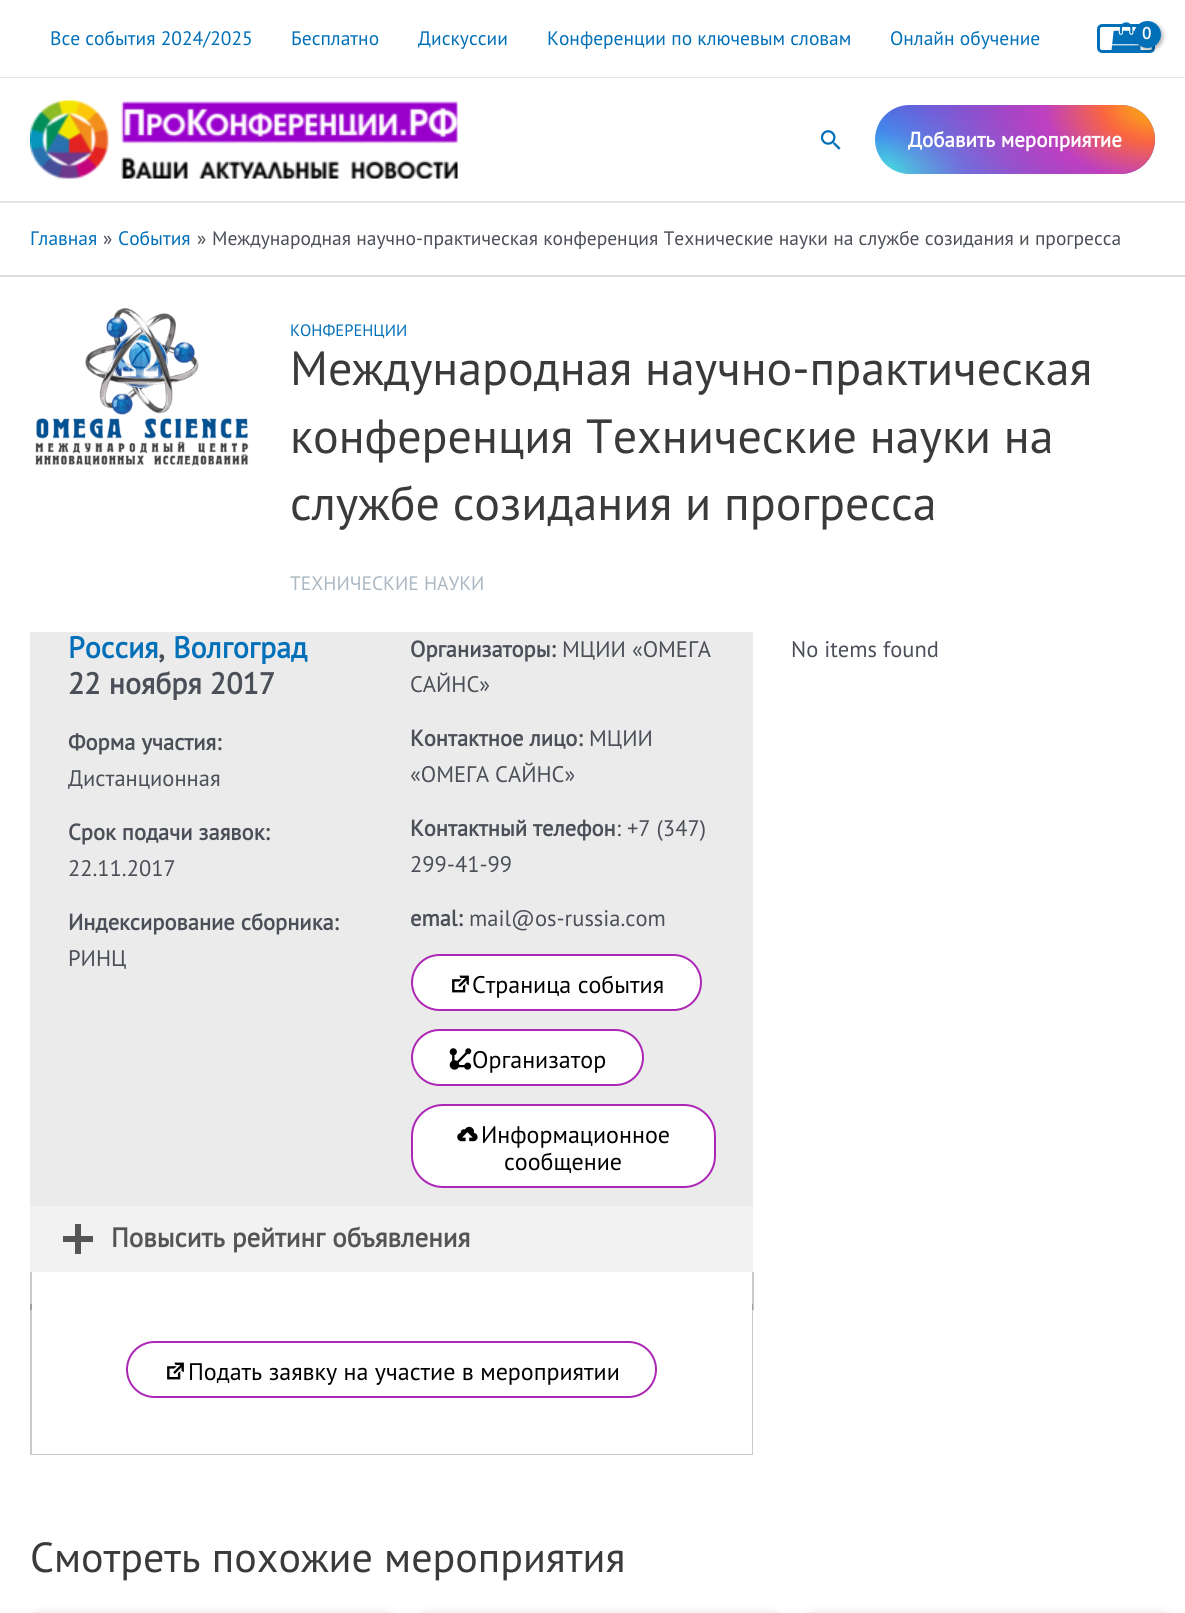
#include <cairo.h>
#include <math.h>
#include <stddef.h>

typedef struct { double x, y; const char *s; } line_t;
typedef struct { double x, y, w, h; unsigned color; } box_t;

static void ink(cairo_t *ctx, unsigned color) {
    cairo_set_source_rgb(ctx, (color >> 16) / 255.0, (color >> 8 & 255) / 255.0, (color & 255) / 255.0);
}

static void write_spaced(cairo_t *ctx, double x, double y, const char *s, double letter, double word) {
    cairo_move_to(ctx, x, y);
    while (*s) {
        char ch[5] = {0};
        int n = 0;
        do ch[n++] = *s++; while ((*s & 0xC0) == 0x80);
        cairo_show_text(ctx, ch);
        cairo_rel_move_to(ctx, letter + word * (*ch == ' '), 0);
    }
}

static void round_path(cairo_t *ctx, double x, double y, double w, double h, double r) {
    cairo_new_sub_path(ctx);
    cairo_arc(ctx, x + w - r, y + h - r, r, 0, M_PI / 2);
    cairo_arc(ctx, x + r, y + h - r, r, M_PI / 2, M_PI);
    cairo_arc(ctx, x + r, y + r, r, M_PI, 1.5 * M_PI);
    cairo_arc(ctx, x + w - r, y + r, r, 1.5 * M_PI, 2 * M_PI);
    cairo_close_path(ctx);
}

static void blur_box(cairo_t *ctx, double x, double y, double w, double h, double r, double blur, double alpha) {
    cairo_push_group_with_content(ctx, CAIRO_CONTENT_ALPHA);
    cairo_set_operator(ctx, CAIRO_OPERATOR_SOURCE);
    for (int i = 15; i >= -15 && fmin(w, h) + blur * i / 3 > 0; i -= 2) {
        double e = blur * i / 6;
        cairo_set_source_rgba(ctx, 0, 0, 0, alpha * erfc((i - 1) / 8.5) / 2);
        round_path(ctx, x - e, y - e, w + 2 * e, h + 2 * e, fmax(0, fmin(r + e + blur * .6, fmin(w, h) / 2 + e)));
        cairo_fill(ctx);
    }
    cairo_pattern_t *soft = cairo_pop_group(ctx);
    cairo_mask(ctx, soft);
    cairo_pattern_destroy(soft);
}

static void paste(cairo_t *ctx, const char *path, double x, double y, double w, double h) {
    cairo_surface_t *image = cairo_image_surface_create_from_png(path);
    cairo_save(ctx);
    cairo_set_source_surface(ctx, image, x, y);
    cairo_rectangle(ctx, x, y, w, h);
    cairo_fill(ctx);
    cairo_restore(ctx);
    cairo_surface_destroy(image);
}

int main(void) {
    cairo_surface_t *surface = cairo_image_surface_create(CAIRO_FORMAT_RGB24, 1185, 1613);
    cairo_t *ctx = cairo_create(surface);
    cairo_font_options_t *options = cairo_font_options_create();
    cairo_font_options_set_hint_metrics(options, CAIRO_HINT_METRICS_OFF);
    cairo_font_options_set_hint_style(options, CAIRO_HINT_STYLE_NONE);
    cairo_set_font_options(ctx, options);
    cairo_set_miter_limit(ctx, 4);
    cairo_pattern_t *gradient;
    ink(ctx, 0xFFFFFF);
    cairo_paint(ctx);
    ink(ctx, 0xE5E5E5);
    cairo_rectangle(ctx, 0, 77, 1185, 1);
    cairo_fill(ctx);
    cairo_select_font_face(ctx, "PT Sans", CAIRO_FONT_SLANT_NORMAL, CAIRO_FONT_WEIGHT_NORMAL);
    cairo_set_font_size(ctx, 19.5);
    ink(ctx, 0x0170B9);
    {
        static const line_t items[] = {
            {50, 45, "Все события 2024/2025"},
            {291, 45, "Бесплатно"},
            {418, 45, "Дискуссии"},
            {547, 45, "Конференции по ключевым словам"},
            {890, 45, "Онлайн обучение"},
        };
        for (size_t i = 0; i < sizeof items / sizeof *items; i++) {
            cairo_move_to(ctx, items[i].x, items[i].y);
            cairo_show_text(ctx, items[i].s);
        }
    }
    round_path(ctx, 1098.5, 25.5, 55, 26, 3.5);
    cairo_set_line_width(ctx, 3);
    cairo_stroke(ctx);
    paste(ctx, "media/1.png", 1111, 22, 30, 28);
    ink(ctx, 0x000000);
    blur_box(ctx, 1136, 23, 27, 27, 13.5, 2, 0.3);
    ink(ctx, 0x0170B9);
    cairo_arc(ctx, 1147.5, 34.5, 13.5, 0, 2 * M_PI);
    cairo_fill(ctx);
    cairo_select_font_face(ctx, "PT Sans", CAIRO_FONT_SLANT_NORMAL, CAIRO_FONT_WEIGHT_BOLD);
    cairo_set_font_size(ctx, 16.5);
    ink(ctx, 0xFFFFFF);
    write_spaced(ctx, 1142, 39, "0", -1, 0);
    ink(ctx, 0xE5E5E5);
    cairo_rectangle(ctx, 0, 201, 1185, 2);
    cairo_fill(ctx);
    paste(ctx, "media/2.png", 30, 100, 428, 79);
    paste(ctx, "media/3.png", 820, 130, 21, 20);
    gradient = cairo_pattern_create_radial(0, 0, 0, 0, 0, 1);
    cairo_pattern_set_matrix(gradient, &(cairo_matrix_t){1.0 / 301, 0, 0, 1.0 / 135, -1.0 * 875 / 301, -1.0 * 174 / 135});
    cairo_pattern_add_color_stop_rgba(gradient, 0.08, 0.282, 0.8, 0.878, 1);
    cairo_pattern_add_color_stop_rgba(gradient, 0.31, 0.259, 0.545, 0.922, 1);
    cairo_pattern_add_color_stop_rgba(gradient, 0.65, 0.314, 0.353, 0.867, 1);
    cairo_set_source(ctx, gradient);
    cairo_pattern_destroy(gradient);
    round_path(ctx, 875, 105, 280, 69, 34.5);
    cairo_fill(ctx);
    gradient = cairo_pattern_create_radial(0, 0, 0, 0, 0, 1);
    cairo_pattern_set_matrix(gradient, &(cairo_matrix_t){1.0 / 277, 0, 0, 1.0 / 193, -1.0 * 1155 / 277, -1.0 * 105 / 193});
    cairo_pattern_add_color_stop_rgba(gradient, 0.03, 0.988, 0.671, 0.078, 1);
    cairo_pattern_add_color_stop_rgba(gradient, 0.19, 0.98, 0.4, 0.255, 1);
    cairo_pattern_add_color_stop_rgba(gradient, 0.4, 0.745, 0.251, 0.753, 1);
    cairo_pattern_add_color_stop_rgba(gradient, 1, 0.745, 0.251, 0.753, 0);
    cairo_set_source(ctx, gradient);
    cairo_pattern_destroy(gradient);
    round_path(ctx, 875, 105, 280, 69, 34.5);
    cairo_fill(ctx);
    cairo_set_font_size(ctx, 21);
    ink(ctx, 0xFFFFFF);
    cairo_move_to(ctx, 908, 147);
    cairo_show_text(ctx, "Добавить мероприятие");
    ink(ctx, 0xDDDDDD);
    cairo_rectangle(ctx, 0, 275, 1185, 2);
    cairo_fill(ctx);
    cairo_select_font_face(ctx, "PT Sans", CAIRO_FONT_SLANT_NORMAL, CAIRO_FONT_WEIGHT_NORMAL);
    cairo_set_font_size(ctx, 19.5);
    ink(ctx, 0x0170B9);
    cairo_move_to(ctx, 30, 245);
    cairo_show_text(ctx, "Главная");
    ink(ctx, 0x4B4F58);
    cairo_move_to(ctx, 103, 245);
    cairo_show_text(ctx, "»");
    ink(ctx, 0x0170B9);
    cairo_move_to(ctx, 118, 245);
    cairo_show_text(ctx, "События");
    ink(ctx, 0x4B4F58);
    cairo_move_to(ctx, 197, 245);
    cairo_show_text(ctx, "»");
    cairo_move_to(ctx, 212, 245);
    cairo_show_text(ctx, "Международная научно-практическая конференция Технические науки на службе созидания и прогресса");
    paste(ctx, "media/4.png", 35, 308, 214, 158);
    cairo_set_font_size(ctx, 16.5);
    ink(ctx, 0x0170B9);
    cairo_move_to(ctx, 290, 336);
    cairo_show_text(ctx, "КОНФЕРЕНЦИИ");
    cairo_set_font_size(ctx, 48);
    ink(ctx, 0x3A3A3A);
    {
        static const line_t items[] = {
            {290, 385, "Международная научно-практическая"},
            {290, 453, "конференция Технические науки на"},
            {290, 520, "службе созидания и прогресса"},
        };
        for (size_t i = 0; i < sizeof items / sizeof *items; i++) {
            cairo_move_to(ctx, items[i].x, items[i].y);
            cairo_show_text(ctx, items[i].s);
        }
    }
    cairo_set_font_size(ctx, 19.5);
    ink(ctx, 0xABB8C3);
    cairo_move_to(ctx, 290, 590);
    cairo_show_text(ctx, "ТЕХНИЧЕСКИЕ НАУКИ");
    ink(ctx, 0xEBEBEB);
    cairo_rectangle(ctx, 30, 632, 723, 574);
    cairo_fill(ctx);
    cairo_select_font_face(ctx, "PT Sans", CAIRO_FONT_SLANT_NORMAL, CAIRO_FONT_WEIGHT_BOLD);
    cairo_set_font_size(ctx, 30);
    ink(ctx, 0x0170B9);
    cairo_move_to(ctx, 68, 658);
    cairo_show_text(ctx, "Россия");
    ink(ctx, 0x4B4F58);
    cairo_move_to(ctx, 158, 658);
    cairo_show_text(ctx, ",");
    ink(ctx, 0x0170B9);
    cairo_move_to(ctx, 173, 658);
    cairo_show_text(ctx, "Волгоград");
    ink(ctx, 0x4B4F58);
    cairo_move_to(ctx, 68, 694);
    cairo_show_text(ctx, "22 ноября 2017");
    cairo_set_font_size(ctx, 22.5);
    cairo_move_to(ctx, 68, 750);
    cairo_show_text(ctx, "Форма участия:");
    cairo_select_font_face(ctx, "PT Sans", CAIRO_FONT_SLANT_NORMAL, CAIRO_FONT_WEIGHT_NORMAL);
    cairo_move_to(ctx, 68, 786);
    cairo_show_text(ctx, "Дистанционная");
    cairo_select_font_face(ctx, "PT Sans", CAIRO_FONT_SLANT_NORMAL, CAIRO_FONT_WEIGHT_BOLD);
    cairo_move_to(ctx, 68, 840);
    cairo_show_text(ctx, "Срок подачи заявок:");
    cairo_select_font_face(ctx, "PT Sans", CAIRO_FONT_SLANT_NORMAL, CAIRO_FONT_WEIGHT_NORMAL);
    cairo_move_to(ctx, 68, 876);
    cairo_show_text(ctx, "22.11.2017");
    cairo_select_font_face(ctx, "PT Sans", CAIRO_FONT_SLANT_NORMAL, CAIRO_FONT_WEIGHT_BOLD);
    cairo_move_to(ctx, 68, 930);
    cairo_show_text(ctx, "Индексирование сборника:");
    cairo_select_font_face(ctx, "PT Sans", CAIRO_FONT_SLANT_NORMAL, CAIRO_FONT_WEIGHT_NORMAL);
    cairo_move_to(ctx, 68, 966);
    cairo_show_text(ctx, "РИНЦ");
    cairo_select_font_face(ctx, "PT Sans", CAIRO_FONT_SLANT_NORMAL, CAIRO_FONT_WEIGHT_BOLD);
    cairo_move_to(ctx, 410, 657);
    cairo_show_text(ctx, "Организаторы:");
    cairo_select_font_face(ctx, "PT Sans", CAIRO_FONT_SLANT_NORMAL, CAIRO_FONT_WEIGHT_NORMAL);
    cairo_move_to(ctx, 562, 657);
    cairo_show_text(ctx, "МЦИИ «ОМЕГА");
    cairo_move_to(ctx, 410, 692);
    cairo_show_text(ctx, "САЙНС»");
    cairo_select_font_face(ctx, "PT Sans", CAIRO_FONT_SLANT_NORMAL, CAIRO_FONT_WEIGHT_BOLD);
    cairo_move_to(ctx, 410, 746);
    cairo_show_text(ctx, "Контактное лицо:");
    cairo_select_font_face(ctx, "PT Sans", CAIRO_FONT_SLANT_NORMAL, CAIRO_FONT_WEIGHT_NORMAL);
    cairo_move_to(ctx, 589, 746);
    cairo_show_text(ctx, "МЦИИ");
    cairo_move_to(ctx, 410, 782);
    cairo_show_text(ctx, "«ОМЕГА САЙНС»");
    cairo_select_font_face(ctx, "PT Sans", CAIRO_FONT_SLANT_NORMAL, CAIRO_FONT_WEIGHT_BOLD);
    cairo_move_to(ctx, 410, 836);
    cairo_show_text(ctx, "Контактный телефон");
    cairo_select_font_face(ctx, "PT Sans", CAIRO_FONT_SLANT_NORMAL, CAIRO_FONT_WEIGHT_NORMAL);
    cairo_move_to(ctx, 616, 836);
    cairo_show_text(ctx, ": +7 (347)");
    cairo_move_to(ctx, 410, 872);
    cairo_show_text(ctx, "299-41-99");
    cairo_select_font_face(ctx, "PT Sans", CAIRO_FONT_SLANT_NORMAL, CAIRO_FONT_WEIGHT_BOLD);
    cairo_move_to(ctx, 410, 926);
    cairo_show_text(ctx, "emal:");
    cairo_select_font_face(ctx, "PT Sans", CAIRO_FONT_SLANT_NORMAL, CAIRO_FONT_WEIGHT_NORMAL);
    cairo_move_to(ctx, 469, 926);
    cairo_show_text(ctx, "mail@os-russia.com");
    ink(ctx, 0xFFFFFF);
    round_path(ctx, 412, 955, 289, 55, 27.5);
    cairo_fill_preserve(ctx);
    ink(ctx, 0xAC27B5);
    cairo_set_line_width(ctx, 2);
    cairo_stroke(ctx);
    paste(ctx, "media/5.png", 452, 975, 17, 18);
    cairo_set_font_size(ctx, 24);
    ink(ctx, 0x000000);
    cairo_move_to(ctx, 472, 993);
    cairo_show_text(ctx, "Страница события");
    ink(ctx, 0xFFFFFF);
    round_path(ctx, 412, 1030, 231, 55, 27.5);
    cairo_fill_preserve(ctx);
    ink(ctx, 0xAC27B5);
    cairo_stroke(ctx);
    paste(ctx, "media/6.png", 449, 1048, 23, 22);
    ink(ctx, 0x000000);
    cairo_move_to(ctx, 472, 1068);
    cairo_show_text(ctx, "Организатор");
    ink(ctx, 0xFFFFFF);
    round_path(ctx, 412, 1105, 303, 82, 31);
    cairo_fill_preserve(ctx);
    ink(ctx, 0xAC27B5);
    cairo_stroke(ctx);
    paste(ctx, "media/7.png", 457, 1126, 21, 16);
    ink(ctx, 0x000000);
    cairo_move_to(ctx, 481, 1143);
    cairo_show_text(ctx, "Информационное");
    cairo_move_to(ctx, 504, 1170);
    cairo_show_text(ctx, "сообщение");
    {
        static const box_t items[] = {
            {30, 1206, 723, 66, 0xF2F2F2},
            {75, 1224, 6, 30, 0x555555},
            {63, 1236, 30, 6, 0x555555},
        };
        for (size_t i = 0; i < sizeof items / sizeof *items; i++) {
            ink(ctx, items[i].color);
            cairo_rectangle(ctx, items[i].x, items[i].y, items[i].w, items[i].h);
            cairo_fill(ctx);
        }
    }
    cairo_select_font_face(ctx, "PT Sans", CAIRO_FONT_SLANT_NORMAL, CAIRO_FONT_WEIGHT_BOLD);
    cairo_set_font_size(ctx, 27);
    cairo_move_to(ctx, 111, 1247);
    cairo_show_text(ctx, "Повысить рейтинг объявления");
    ink(ctx, 0xC9C9C9);
    cairo_rectangle(ctx, 752, 1272, 2, 38);
    cairo_fill(ctx);
    cairo_rectangle(ctx, 30, 1272, 2, 38);
    cairo_fill(ctx);
    cairo_set_source_rgba(ctx, 0, 0, 0, 0.21);
    cairo_new_path(ctx);
    cairo_move_to(ctx, 753, 1304);
    cairo_line_to(ctx, 753, 1455);
    cairo_line_to(ctx, 752, 1454);
    cairo_line_to(ctx, 752, 1304);
    cairo_close_path(ctx);
    cairo_fill(ctx);
    cairo_new_path(ctx);
    cairo_move_to(ctx, 753, 1455);
    cairo_line_to(ctx, 30, 1455);
    cairo_line_to(ctx, 32, 1454);
    cairo_line_to(ctx, 752, 1454);
    cairo_close_path(ctx);
    cairo_fill(ctx);
    cairo_new_path(ctx);
    cairo_move_to(ctx, 30, 1455);
    cairo_line_to(ctx, 30, 1304);
    cairo_line_to(ctx, 32, 1304);
    cairo_line_to(ctx, 32, 1454);
    cairo_close_path(ctx);
    cairo_fill(ctx);
    round_path(ctx, 127, 1342, 529, 55, 27.5);
    ink(ctx, 0xAC27B5);
    cairo_stroke(ctx);
    paste(ctx, "media/5.png", 167, 1362, 17, 18);
    cairo_select_font_face(ctx, "PT Sans", CAIRO_FONT_SLANT_NORMAL, CAIRO_FONT_WEIGHT_NORMAL);
    cairo_set_font_size(ctx, 24);
    ink(ctx, 0x000000);
    cairo_move_to(ctx, 188, 1380);
    cairo_show_text(ctx, "Подать заявку на участие в мероприятии");
    cairo_set_font_size(ctx, 22.5);
    ink(ctx, 0x4B4F58);
    cairo_move_to(ctx, 791, 657);
    cairo_show_text(ctx, "No items found");
    cairo_set_font_size(ctx, 42);
    ink(ctx, 0x3A3A3A);
    cairo_move_to(ctx, 30, 1572);
    cairo_show_text(ctx, "Смотреть похожие мероприятия");
    ink(ctx, 0x000000);
    blur_box(ctx, 38, 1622, 349, 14, 0, 7.5, 0.5);
    blur_box(ctx, 425, 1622, 351, 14, 0, 7.5, 0.5);
    blur_box(ctx, 813, 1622, 350, 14, 0, 7.5, 0.5);
    cairo_surface_write_to_png(surface, "image.png");
    cairo_font_options_destroy(options);
    cairo_destroy(ctx);
    cairo_surface_destroy(surface);
    return 0;
}
